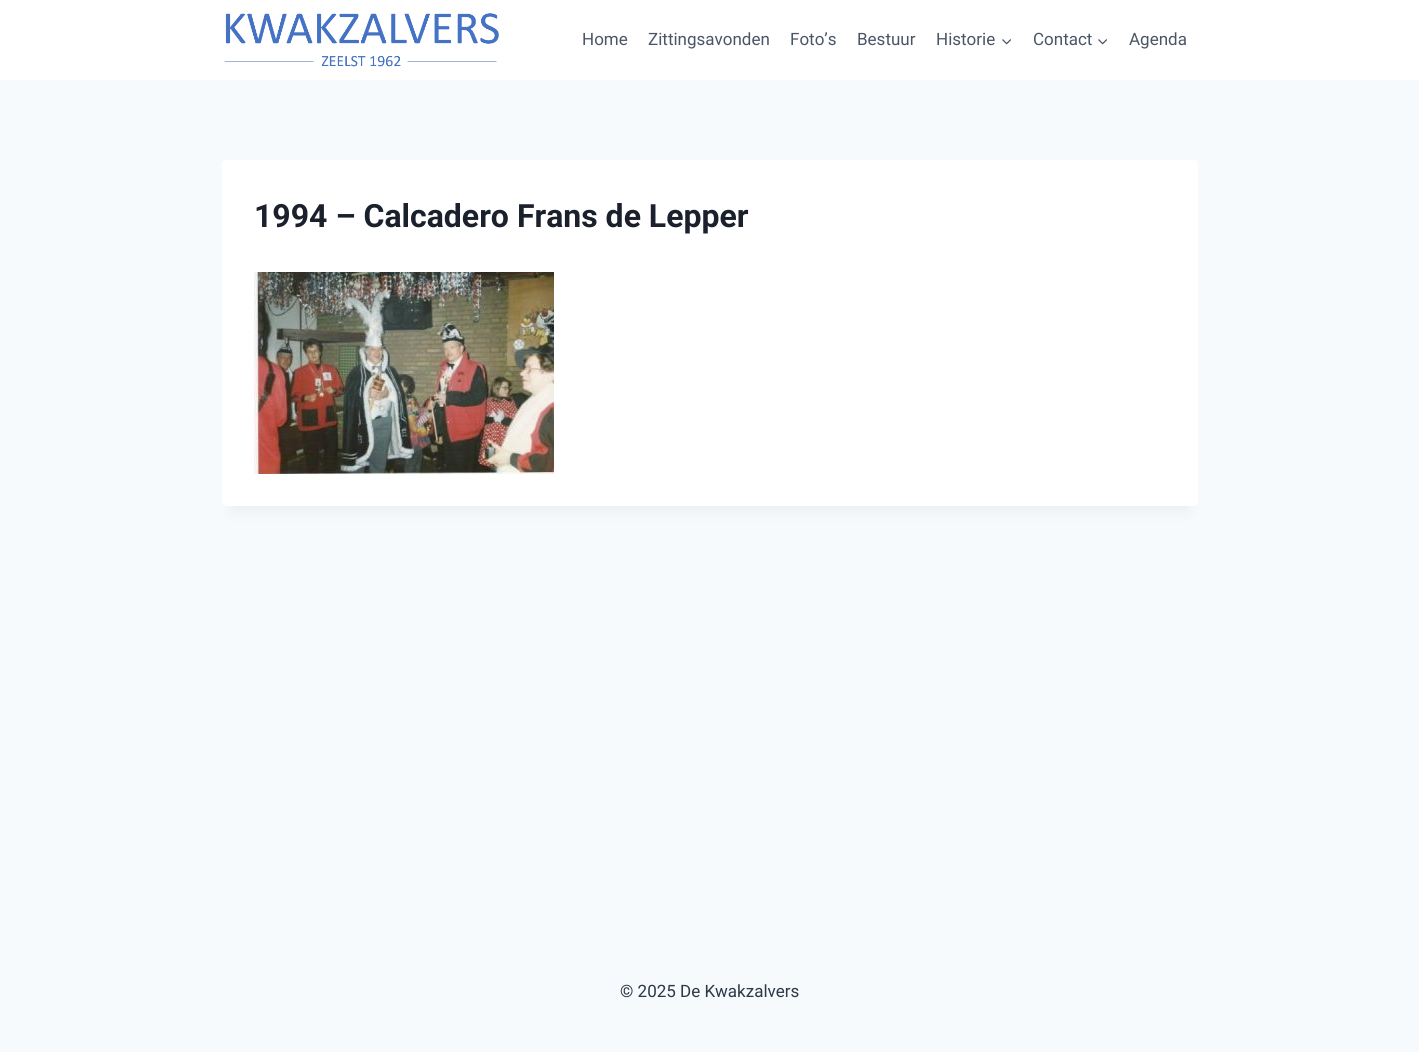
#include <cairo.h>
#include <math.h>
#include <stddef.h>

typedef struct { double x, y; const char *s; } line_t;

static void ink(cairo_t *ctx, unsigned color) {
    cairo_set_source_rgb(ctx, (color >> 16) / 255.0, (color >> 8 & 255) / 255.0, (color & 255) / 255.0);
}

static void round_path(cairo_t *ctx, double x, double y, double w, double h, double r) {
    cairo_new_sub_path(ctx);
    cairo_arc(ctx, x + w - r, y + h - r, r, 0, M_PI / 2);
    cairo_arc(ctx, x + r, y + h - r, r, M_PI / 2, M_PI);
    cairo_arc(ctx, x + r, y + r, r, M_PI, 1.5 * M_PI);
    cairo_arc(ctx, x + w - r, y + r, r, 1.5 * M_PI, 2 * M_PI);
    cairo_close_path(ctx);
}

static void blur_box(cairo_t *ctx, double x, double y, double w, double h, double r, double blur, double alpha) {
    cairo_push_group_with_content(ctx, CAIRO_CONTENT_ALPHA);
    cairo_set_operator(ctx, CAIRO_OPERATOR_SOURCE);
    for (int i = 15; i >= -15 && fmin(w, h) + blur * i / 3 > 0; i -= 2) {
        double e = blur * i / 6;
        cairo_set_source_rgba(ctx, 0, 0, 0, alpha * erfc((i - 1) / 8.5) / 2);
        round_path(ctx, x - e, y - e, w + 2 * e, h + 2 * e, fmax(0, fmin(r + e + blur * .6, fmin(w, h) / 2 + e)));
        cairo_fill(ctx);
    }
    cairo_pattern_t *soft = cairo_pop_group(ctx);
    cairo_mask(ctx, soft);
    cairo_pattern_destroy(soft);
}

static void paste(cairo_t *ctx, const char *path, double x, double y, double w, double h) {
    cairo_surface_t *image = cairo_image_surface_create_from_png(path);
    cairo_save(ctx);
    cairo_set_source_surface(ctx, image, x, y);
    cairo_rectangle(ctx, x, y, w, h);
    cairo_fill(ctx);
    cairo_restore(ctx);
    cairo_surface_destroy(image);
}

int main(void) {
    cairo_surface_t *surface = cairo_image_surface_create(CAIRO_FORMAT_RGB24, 1419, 1052);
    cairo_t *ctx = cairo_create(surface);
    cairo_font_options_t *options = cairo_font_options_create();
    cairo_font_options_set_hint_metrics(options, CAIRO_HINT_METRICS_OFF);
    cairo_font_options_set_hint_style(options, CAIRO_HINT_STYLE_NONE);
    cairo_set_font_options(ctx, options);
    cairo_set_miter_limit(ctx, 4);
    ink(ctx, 0xF7FAFC);
    cairo_paint(ctx);
    ink(ctx, 0xFFFFFF);
    cairo_rectangle(ctx, 0, 0, 1419, 80);
    cairo_fill(ctx);
    paste(ctx, "media/1.png", 224, 13, 275, 54);
    cairo_select_font_face(ctx, "Roboto", CAIRO_FONT_SLANT_NORMAL, CAIRO_FONT_WEIGHT_NORMAL);
    cairo_set_font_size(ctx, 17);
    ink(ctx, 0x4A5568);
    {
        static const line_t items[] = {
            {582, 45, "Home"},
            {648, 45, "Zittingsavonden"},
            {790, 45, "Foto’s"},
            {857, 45, "Bestuur"},
            {936, 45, "Historie"},
        };
        for (size_t i = 0; i < sizeof items / sizeof *items; i++) {
            cairo_move_to(ctx, items[i].x, items[i].y);
            cairo_show_text(ctx, items[i].s);
        }
    }
    paste(ctx, "media/2.png", 1002, 39, 10, 6);
    cairo_move_to(ctx, 1033, 45);
    cairo_show_text(ctx, "Contact");
    paste(ctx, "media/2.png", 1098, 39, 10, 6);
    cairo_move_to(ctx, 1129, 45);
    cairo_show_text(ctx, "Agenda");
    ink(ctx, 0x000000);
    blur_box(ctx, 232, 185, 956, 326, 0, 7.5, 0.05);
    ink(ctx, 0xFFFFFF);
    round_path(ctx, 222, 160, 976, 346, 4);
    cairo_fill(ctx);
    cairo_select_font_face(ctx, "Roboto", CAIRO_FONT_SLANT_NORMAL, CAIRO_FONT_WEIGHT_BOLD);
    cairo_set_font_size(ctx, 32);
    ink(ctx, 0x1A202C);
    cairo_move_to(ctx, 254, 227);
    cairo_show_text(ctx, "1994 – Calcadero Frans de Lepper");
    paste(ctx, "media/3.png", 254, 272, 300, 202);
    cairo_select_font_face(ctx, "Roboto", CAIRO_FONT_SLANT_NORMAL, CAIRO_FONT_WEIGHT_NORMAL);
    cairo_set_font_size(ctx, 17);
    ink(ctx, 0x2D3748);
    cairo_move_to(ctx, 620, 997);
    cairo_show_text(ctx, "© 2025 De Kwakzalvers");
    cairo_surface_write_to_png(surface, "image.png");
    cairo_font_options_destroy(options);
    cairo_destroy(ctx);
    cairo_surface_destroy(surface);
    return 0;
}
